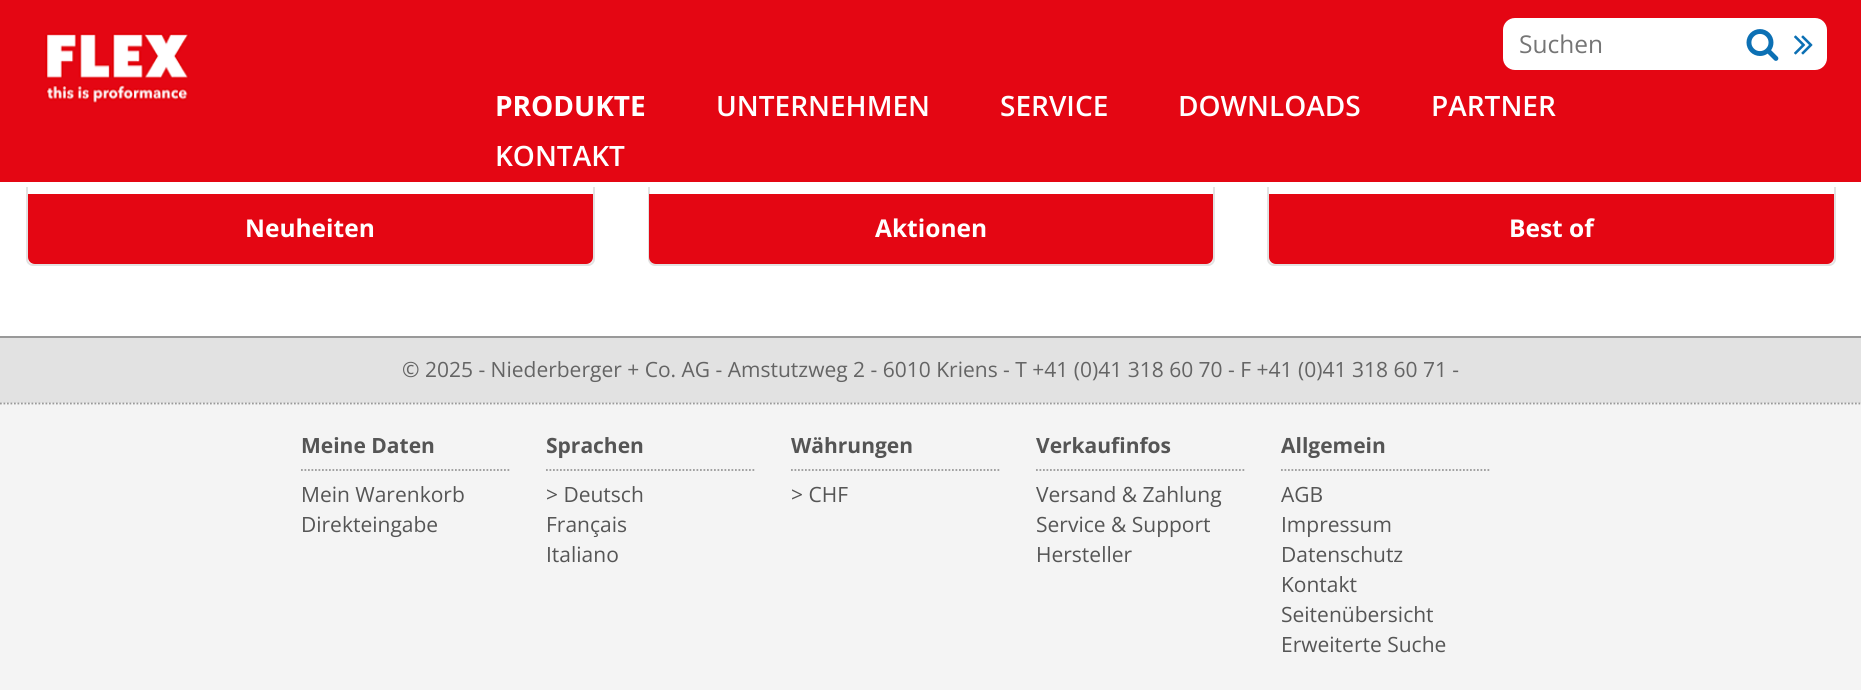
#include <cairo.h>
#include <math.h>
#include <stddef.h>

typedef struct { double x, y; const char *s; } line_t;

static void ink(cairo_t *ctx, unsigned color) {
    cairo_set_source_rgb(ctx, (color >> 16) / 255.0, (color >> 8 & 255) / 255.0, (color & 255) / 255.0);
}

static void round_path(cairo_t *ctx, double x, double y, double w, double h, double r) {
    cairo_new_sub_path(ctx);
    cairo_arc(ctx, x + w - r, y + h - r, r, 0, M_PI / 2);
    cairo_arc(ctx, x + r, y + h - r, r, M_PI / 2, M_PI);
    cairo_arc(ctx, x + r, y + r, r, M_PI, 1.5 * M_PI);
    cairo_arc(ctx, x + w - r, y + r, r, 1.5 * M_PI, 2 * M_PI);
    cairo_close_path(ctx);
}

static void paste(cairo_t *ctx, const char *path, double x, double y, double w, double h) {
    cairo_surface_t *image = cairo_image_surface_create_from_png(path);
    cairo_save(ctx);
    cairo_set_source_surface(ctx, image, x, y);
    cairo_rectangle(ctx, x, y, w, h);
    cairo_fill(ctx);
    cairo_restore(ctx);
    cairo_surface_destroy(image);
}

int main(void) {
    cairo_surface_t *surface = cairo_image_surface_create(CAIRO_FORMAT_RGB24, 1861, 690);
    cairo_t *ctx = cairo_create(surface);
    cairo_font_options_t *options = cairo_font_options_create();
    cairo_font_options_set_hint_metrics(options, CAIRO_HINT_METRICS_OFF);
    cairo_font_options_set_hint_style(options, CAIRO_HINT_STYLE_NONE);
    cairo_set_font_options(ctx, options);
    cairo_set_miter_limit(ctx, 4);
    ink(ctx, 0xFFFFFF);
    cairo_paint(ctx);
    round_path(ctx, 27, -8, 567, 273, 6);
    ink(ctx, 0xE2E2E2);
    cairo_stroke(ctx);
    round_path(ctx, 649, -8, 565, 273, 6);
    cairo_stroke(ctx);
    round_path(ctx, 1268, -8, 567, 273, 6);
    cairo_stroke(ctx);
    ink(ctx, 0xE40613);
    cairo_rectangle(ctx, 0, 0, 1861, 182);
    cairo_fill(ctx);
    ink(ctx, 0xFFFFFF);
    cairo_rectangle(ctx, 26, 182, 1810, 5);
    cairo_fill(ctx);
    paste(ctx, "media/1.png", 45, 33, 144, 71);
    round_path(ctx, 1504, 19, 322, 50, 11);
    cairo_fill_preserve(ctx);
    cairo_stroke(ctx);
    cairo_select_font_face(ctx, "Open Sans", CAIRO_FONT_SLANT_NORMAL, CAIRO_FONT_WEIGHT_NORMAL);
    cairo_set_font_size(ctx, 24.5);
    ink(ctx, 0x757575);
    cairo_move_to(ctx, 1519, 53);
    cairo_show_text(ctx, "Suchen");
    paste(ctx, "media/2.png", 1746, 29, 33, 32);
    paste(ctx, "media/3.png", 1794, 35, 19, 20);
    cairo_select_font_face(ctx, "Open Sans", CAIRO_FONT_SLANT_NORMAL, CAIRO_FONT_WEIGHT_BOLD);
    cairo_set_font_size(ctx, 28);
    ink(ctx, 0xFFFFFF);
    cairo_move_to(ctx, 495, 116);
    cairo_show_text(ctx, "PRODUKTE");
    cairo_select_font_face(ctx, "Open Sans SemiBold", CAIRO_FONT_SLANT_NORMAL, CAIRO_FONT_WEIGHT_NORMAL);
    {
        static const line_t items[] = {
            {716, 116, "UNTERNEHMEN"},
            {1000, 116, "SERVICE"},
            {1178, 116, "DOWNLOADS"},
            {1431, 116, "PARTNER"},
            {495, 166, "KONTAKT"},
        };
        for (size_t i = 0; i < sizeof items / sizeof *items; i++) {
            cairo_move_to(ctx, items[i].x, items[i].y);
            cairo_show_text(ctx, items[i].s);
        }
    }
    ink(ctx, 0xE40613);
    cairo_new_path(ctx);
    cairo_move_to(ctx, 28, 194);
    cairo_line_to(ctx, 593, 194);
    cairo_line_to(ctx, 593, 257);
    cairo_curve_to(ctx, 593, 261, 590, 264, 586, 264);
    cairo_line_to(ctx, 35, 264);
    cairo_curve_to(ctx, 31, 264, 28, 261, 28, 257);
    cairo_close_path(ctx);
    cairo_fill(ctx);
    cairo_select_font_face(ctx, "Open Sans", CAIRO_FONT_SLANT_NORMAL, CAIRO_FONT_WEIGHT_BOLD);
    cairo_set_font_size(ctx, 24.5);
    ink(ctx, 0xFFFFFF);
    cairo_move_to(ctx, 245, 237);
    cairo_show_text(ctx, "Neuheiten");
    ink(ctx, 0xE40613);
    cairo_new_path(ctx);
    cairo_move_to(ctx, 649, 194);
    cairo_line_to(ctx, 1213, 194);
    cairo_line_to(ctx, 1213, 257);
    cairo_curve_to(ctx, 1213, 261, 1210, 264, 1206, 264);
    cairo_line_to(ctx, 656, 264);
    cairo_curve_to(ctx, 652, 264, 649, 261, 649, 257);
    cairo_close_path(ctx);
    cairo_fill(ctx);
    ink(ctx, 0xFFFFFF);
    cairo_move_to(ctx, 875, 237);
    cairo_show_text(ctx, "Aktionen");
    ink(ctx, 0xE40613);
    cairo_new_path(ctx);
    cairo_move_to(ctx, 1269, 194);
    cairo_line_to(ctx, 1834, 194);
    cairo_line_to(ctx, 1834, 257);
    cairo_curve_to(ctx, 1834, 261, 1831, 264, 1827, 264);
    cairo_line_to(ctx, 1276, 264);
    cairo_curve_to(ctx, 1272, 264, 1269, 261, 1269, 257);
    cairo_close_path(ctx);
    cairo_fill(ctx);
    ink(ctx, 0xFFFFFF);
    cairo_move_to(ctx, 1509, 237);
    cairo_show_text(ctx, "Best of");
    ink(ctx, 0xE2E2E2);
    cairo_rectangle(ctx, 0, 338, 1861, 65);
    cairo_fill(ctx);
    ink(ctx, 0x999999);
    cairo_rectangle(ctx, 0, 336, 1861, 2);
    cairo_fill(ctx);
    cairo_select_font_face(ctx, "Open Sans", CAIRO_FONT_SLANT_NORMAL, CAIRO_FONT_WEIGHT_NORMAL);
    cairo_set_font_size(ctx, 21);
    ink(ctx, 0x646464);
    cairo_move_to(ctx, 402, 377);
    cairo_show_text(ctx, "© 2025 - Niederberger + Co. AG - Amstutzweg 2 - 6010 Kriens - T +41 (0)41 318 60 70 - F +41 (0)41 318 60 71 -");
    ink(ctx, 0xF4F4F4);
    cairo_rectangle(ctx, 0, 403, 1861, 287);
    cairo_fill(ctx);
    cairo_new_path(ctx);
    cairo_move_to(ctx, 0, 403.5);
    cairo_line_to(ctx, 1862, 403.5);
    ink(ctx, 0x999999);
    cairo_set_line_width(ctx, 1.8);
    cairo_set_dash(ctx, (double[]){1.75, 1.75}, 2, 0);
    cairo_stroke(ctx);
    cairo_new_path(ctx);
    cairo_move_to(ctx, 301, 470);
    cairo_line_to(ctx, 511, 470);
    cairo_stroke(ctx);
    cairo_select_font_face(ctx, "Open Sans", CAIRO_FONT_SLANT_NORMAL, CAIRO_FONT_WEIGHT_BOLD);
    ink(ctx, 0x555555);
    cairo_move_to(ctx, 301, 453);
    cairo_show_text(ctx, "Meine Daten");
    cairo_select_font_face(ctx, "Open Sans", CAIRO_FONT_SLANT_NORMAL, CAIRO_FONT_WEIGHT_NORMAL);
    cairo_move_to(ctx, 301, 502);
    cairo_show_text(ctx, "Mein Warenkorb");
    cairo_move_to(ctx, 301, 532);
    cairo_show_text(ctx, "Direkteingabe");
    cairo_new_path(ctx);
    cairo_move_to(ctx, 546, 470);
    cairo_line_to(ctx, 756, 470);
    ink(ctx, 0x999999);
    cairo_stroke(ctx);
    cairo_select_font_face(ctx, "Open Sans", CAIRO_FONT_SLANT_NORMAL, CAIRO_FONT_WEIGHT_BOLD);
    ink(ctx, 0x555555);
    cairo_move_to(ctx, 546, 453);
    cairo_show_text(ctx, "Sprachen");
    cairo_select_font_face(ctx, "Open Sans", CAIRO_FONT_SLANT_NORMAL, CAIRO_FONT_WEIGHT_NORMAL);
    {
        static const line_t items[] = {
            {546, 502, "> Deutsch"},
            {546, 532, "Français"},
            {546, 562, "Italiano"},
        };
        for (size_t i = 0; i < sizeof items / sizeof *items; i++) {
            cairo_move_to(ctx, items[i].x, items[i].y);
            cairo_show_text(ctx, items[i].s);
        }
    }
    cairo_new_path(ctx);
    cairo_move_to(ctx, 791, 470);
    cairo_line_to(ctx, 1001, 470);
    ink(ctx, 0x999999);
    cairo_stroke(ctx);
    cairo_select_font_face(ctx, "Open Sans", CAIRO_FONT_SLANT_NORMAL, CAIRO_FONT_WEIGHT_BOLD);
    ink(ctx, 0x555555);
    cairo_move_to(ctx, 791, 453);
    cairo_show_text(ctx, "Währungen");
    cairo_select_font_face(ctx, "Open Sans", CAIRO_FONT_SLANT_NORMAL, CAIRO_FONT_WEIGHT_NORMAL);
    cairo_move_to(ctx, 791, 502);
    cairo_show_text(ctx, "> CHF");
    cairo_new_path(ctx);
    cairo_move_to(ctx, 1036, 470);
    cairo_line_to(ctx, 1246, 470);
    ink(ctx, 0x999999);
    cairo_stroke(ctx);
    cairo_select_font_face(ctx, "Open Sans", CAIRO_FONT_SLANT_NORMAL, CAIRO_FONT_WEIGHT_BOLD);
    ink(ctx, 0x555555);
    cairo_move_to(ctx, 1036, 453);
    cairo_show_text(ctx, "Verkaufinfos");
    cairo_select_font_face(ctx, "Open Sans", CAIRO_FONT_SLANT_NORMAL, CAIRO_FONT_WEIGHT_NORMAL);
    {
        static const line_t items[] = {
            {1036, 502, "Versand & Zahlung"},
            {1036, 532, "Service & Support"},
            {1036, 562, "Hersteller"},
        };
        for (size_t i = 0; i < sizeof items / sizeof *items; i++) {
            cairo_move_to(ctx, items[i].x, items[i].y);
            cairo_show_text(ctx, items[i].s);
        }
    }
    cairo_new_path(ctx);
    cairo_move_to(ctx, 1281, 470);
    cairo_line_to(ctx, 1491, 470);
    ink(ctx, 0x999999);
    cairo_stroke(ctx);
    cairo_select_font_face(ctx, "Open Sans", CAIRO_FONT_SLANT_NORMAL, CAIRO_FONT_WEIGHT_BOLD);
    ink(ctx, 0x555555);
    cairo_move_to(ctx, 1281, 453);
    cairo_show_text(ctx, "Allgemein");
    cairo_select_font_face(ctx, "Open Sans", CAIRO_FONT_SLANT_NORMAL, CAIRO_FONT_WEIGHT_NORMAL);
    {
        static const line_t items[] = {
            {1281, 502, "AGB"},
            {1281, 532, "Impressum"},
            {1281, 562, "Datenschutz"},
            {1281, 592, "Kontakt"},
            {1281, 622, "Seitenübersicht"},
            {1281, 652, "Erweiterte Suche"},
        };
        for (size_t i = 0; i < sizeof items / sizeof *items; i++) {
            cairo_move_to(ctx, items[i].x, items[i].y);
            cairo_show_text(ctx, items[i].s);
        }
    }
    cairo_surface_write_to_png(surface, "image.png");
    cairo_font_options_destroy(options);
    cairo_destroy(ctx);
    cairo_surface_destroy(surface);
    return 0;
}
